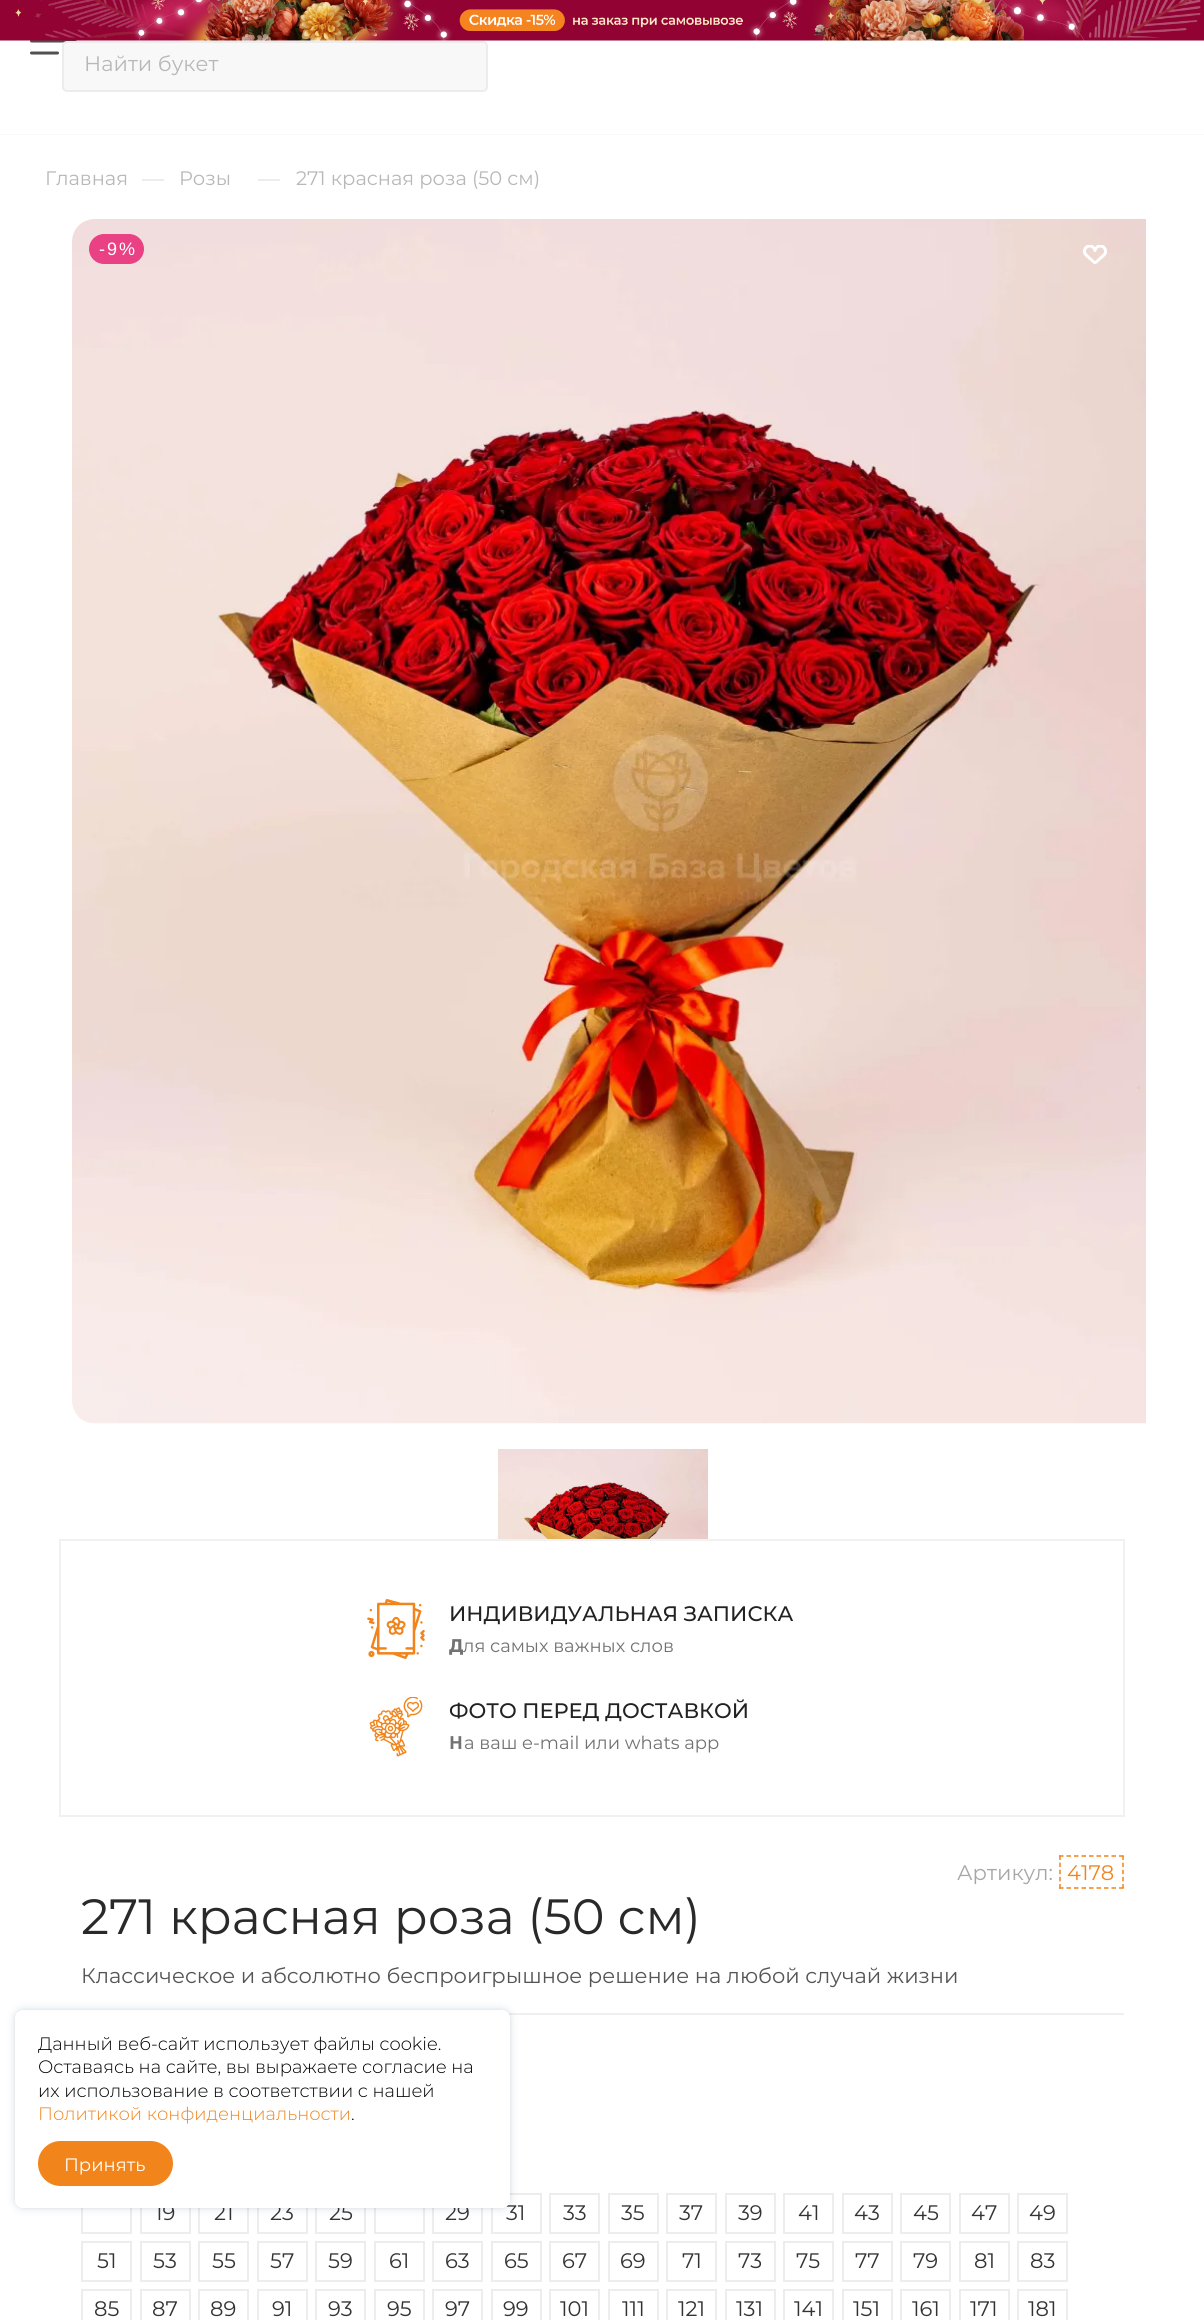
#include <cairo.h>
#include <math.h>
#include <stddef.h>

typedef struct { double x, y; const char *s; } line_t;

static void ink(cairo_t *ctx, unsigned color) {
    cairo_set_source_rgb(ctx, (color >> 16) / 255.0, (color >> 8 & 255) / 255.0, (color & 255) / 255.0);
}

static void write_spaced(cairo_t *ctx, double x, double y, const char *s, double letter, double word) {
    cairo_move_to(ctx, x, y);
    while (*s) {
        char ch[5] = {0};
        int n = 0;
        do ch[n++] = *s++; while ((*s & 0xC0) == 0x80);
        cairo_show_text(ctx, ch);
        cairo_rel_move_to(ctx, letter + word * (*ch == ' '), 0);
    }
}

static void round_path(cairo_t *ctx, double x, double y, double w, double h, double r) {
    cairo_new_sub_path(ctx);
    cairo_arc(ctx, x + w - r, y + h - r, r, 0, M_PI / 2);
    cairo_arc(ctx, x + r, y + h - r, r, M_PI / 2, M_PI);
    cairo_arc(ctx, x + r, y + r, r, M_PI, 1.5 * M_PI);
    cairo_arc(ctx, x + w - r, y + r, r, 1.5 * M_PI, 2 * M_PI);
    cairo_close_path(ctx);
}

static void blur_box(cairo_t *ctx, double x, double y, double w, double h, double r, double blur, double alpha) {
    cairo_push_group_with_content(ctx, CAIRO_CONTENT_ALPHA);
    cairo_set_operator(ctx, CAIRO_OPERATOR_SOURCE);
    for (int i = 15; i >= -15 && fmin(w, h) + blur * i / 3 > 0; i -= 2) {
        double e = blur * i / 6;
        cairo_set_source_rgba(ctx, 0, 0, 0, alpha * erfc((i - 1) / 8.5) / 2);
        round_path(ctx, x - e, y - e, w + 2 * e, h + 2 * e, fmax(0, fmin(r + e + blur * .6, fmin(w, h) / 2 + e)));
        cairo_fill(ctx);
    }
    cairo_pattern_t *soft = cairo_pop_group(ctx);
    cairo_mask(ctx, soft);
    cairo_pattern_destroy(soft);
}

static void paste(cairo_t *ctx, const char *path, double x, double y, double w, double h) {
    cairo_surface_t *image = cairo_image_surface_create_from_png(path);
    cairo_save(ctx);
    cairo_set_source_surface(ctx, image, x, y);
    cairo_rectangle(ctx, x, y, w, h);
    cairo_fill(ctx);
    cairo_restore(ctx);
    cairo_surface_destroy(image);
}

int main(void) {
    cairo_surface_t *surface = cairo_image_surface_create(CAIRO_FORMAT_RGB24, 1204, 2320);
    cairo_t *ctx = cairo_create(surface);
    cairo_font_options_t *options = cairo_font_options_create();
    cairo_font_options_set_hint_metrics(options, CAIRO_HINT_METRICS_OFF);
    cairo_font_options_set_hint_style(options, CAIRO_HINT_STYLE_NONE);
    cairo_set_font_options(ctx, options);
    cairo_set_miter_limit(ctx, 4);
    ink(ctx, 0xFFFFFF);
    cairo_paint(ctx);
    cairo_new_path(ctx);
    cairo_move_to(ctx, 31.5, 41);
    cairo_line_to(ctx, 75, 41);
    cairo_move_to(ctx, 31.5, 29.5);
    cairo_line_to(ctx, 75, 29.5);
    cairo_move_to(ctx, 31.5, 53);
    cairo_line_to(ctx, 57.5, 53);
    ink(ctx, 0x505050);
    cairo_set_line_width(ctx, 3);
    cairo_set_line_cap(ctx, CAIRO_LINE_CAP_ROUND);
    cairo_stroke(ctx);
    paste(ctx, "media/1.png", 0, 0, 1204, 41);
    ink(ctx, 0xF8F8F8);
    cairo_rectangle(ctx, 0, 134, 1204, 1);
    cairo_fill(ctx);
    round_path(ctx, 63, 42, 424, 49, 4);
    cairo_fill_preserve(ctx);
    ink(ctx, 0xECECEC);
    cairo_set_line_width(ctx, 2);
    cairo_set_line_cap(ctx, CAIRO_LINE_CAP_BUTT);
    cairo_stroke(ctx);
    cairo_select_font_face(ctx, "Montserrat", CAIRO_FONT_SLANT_NORMAL, CAIRO_FONT_WEIGHT_NORMAL);
    cairo_set_font_size(ctx, 21);
    ink(ctx, 0xB8B8B8);
    cairo_move_to(ctx, 84, 71);
    cairo_show_text(ctx, "Найти букет");
    cairo_set_font_size(ctx, 19.5);
    cairo_move_to(ctx, 45, 185);
    cairo_show_text(ctx, "Главная");
    cairo_set_font_size(ctx, 22);
    ink(ctx, 0xDDDDDD);
    cairo_move_to(ctx, 142, 186);
    cairo_show_text(ctx, "—");
    cairo_set_font_size(ctx, 19.5);
    ink(ctx, 0xB8B8B8);
    cairo_move_to(ctx, 179, 185);
    cairo_show_text(ctx, "Розы");
    cairo_set_font_size(ctx, 22);
    ink(ctx, 0xDDDDDD);
    cairo_move_to(ctx, 258, 186);
    cairo_show_text(ctx, "—");
    cairo_set_font_size(ctx, 19.5);
    ink(ctx, 0xB8B8B8);
    cairo_move_to(ctx, 296, 185);
    cairo_show_text(ctx, "271 красная роза (50 см)");
    paste(ctx, "media/2.png", 72, 219, 1074, 1205);
    ink(ctx, 0xEA4184);
    round_path(ctx, 89, 234, 55, 30, 15);
    cairo_fill(ctx);
    cairo_select_font_face(ctx, "Liberation Sans", CAIRO_FONT_SLANT_NORMAL, CAIRO_FONT_WEIGHT_NORMAL);
    cairo_set_font_size(ctx, 18);
    ink(ctx, 0xFFFFFF);
    write_spaced(ctx, 99, 255, "- 9 %", -1.5, 0);
    paste(ctx, "media/3.png", 1083, 245, 24, 19);
    paste(ctx, "media/4.png", 498, 1449, 210, 90);
    cairo_rectangle(ctx, 60, 1540, 1064, 276);
    ink(ctx, 0xF1F1F1);
    cairo_stroke(ctx);
    paste(ctx, "media/5.png", 367, 1599, 58, 60);
    cairo_select_font_face(ctx, "Montserrat Medium", CAIRO_FONT_SLANT_NORMAL, CAIRO_FONT_WEIGHT_NORMAL);
    cairo_set_font_size(ctx, 21);
    ink(ctx, 0x222222);
    cairo_move_to(ctx, 449, 1621);
    cairo_show_text(ctx, "ИНДИВИДУАЛЬНАЯ ЗАПИСКА");
    cairo_select_font_face(ctx, "Noto Sans ExtraBold", CAIRO_FONT_SLANT_NORMAL, CAIRO_FONT_WEIGHT_NORMAL);
    cairo_set_font_size(ctx, 18);
    ink(ctx, 0x727272);
    cairo_move_to(ctx, 449, 1652);
    cairo_show_text(ctx, "Д");
    cairo_select_font_face(ctx, "Montserrat", CAIRO_FONT_SLANT_NORMAL, CAIRO_FONT_WEIGHT_NORMAL);
    cairo_move_to(ctx, 463, 1652);
    cairo_show_text(ctx, "ля самых важных слов");
    paste(ctx, "media/6.png", 369, 1697, 54, 60);
    cairo_select_font_face(ctx, "Montserrat Medium", CAIRO_FONT_SLANT_NORMAL, CAIRO_FONT_WEIGHT_NORMAL);
    cairo_set_font_size(ctx, 21);
    ink(ctx, 0x222222);
    cairo_move_to(ctx, 449, 1718);
    cairo_show_text(ctx, "ФОТО ПЕРЕД ДОСТАВКОЙ");
    cairo_select_font_face(ctx, "Noto Sans", CAIRO_FONT_SLANT_NORMAL, CAIRO_FONT_WEIGHT_BOLD);
    cairo_set_font_size(ctx, 18);
    ink(ctx, 0x727272);
    cairo_move_to(ctx, 449, 1749);
    cairo_show_text(ctx, "Н");
    cairo_select_font_face(ctx, "Montserrat", CAIRO_FONT_SLANT_NORMAL, CAIRO_FONT_WEIGHT_NORMAL);
    cairo_move_to(ctx, 464, 1749);
    cairo_show_text(ctx, "а ваш e-mail или whats app");
    ink(ctx, 0xEFEFEF);
    cairo_rectangle(ctx, 508, 2013, 616, 2);
    cairo_fill(ctx);
    cairo_set_font_size(ctx, 21);
    ink(ctx, 0xA7A7A7);
    cairo_move_to(ctx, 957, 1880);
    cairo_show_text(ctx, "Артикул:");
    ink(ctx, 0xF1851C);
    cairo_move_to(ctx, 1067, 1880);
    cairo_show_text(ctx, "4178");
    cairo_new_path(ctx);
    cairo_move_to(ctx, 1059, 1856);
    cairo_line_to(ctx, 1123.5, 1856);
    cairo_set_line_width(ctx, 1.5);
    cairo_set_dash(ctx, (double[]){4.5, 3}, 2, 0);
    cairo_stroke(ctx);
    cairo_new_path(ctx);
    cairo_move_to(ctx, 1123, 1855.5);
    cairo_line_to(ctx, 1123, 1888.5);
    cairo_set_dash(ctx, (double[]){4.5, 2.62}, 2, 0);
    cairo_stroke(ctx);
    cairo_new_path(ctx);
    cairo_move_to(ctx, 1059, 1888);
    cairo_line_to(ctx, 1123.5, 1888);
    cairo_set_dash(ctx, (double[]){4.5, 3}, 2, 0);
    cairo_stroke(ctx);
    cairo_new_path(ctx);
    cairo_move_to(ctx, 1060, 1855.5);
    cairo_line_to(ctx, 1060, 1888.5);
    cairo_set_dash(ctx, (double[]){4.5, 2.62}, 2, 0);
    cairo_stroke(ctx);
    cairo_set_font_size(ctx, 49.5);
    ink(ctx, 0x292929);
    cairo_move_to(ctx, 81, 1934);
    cairo_show_text(ctx, "271 красная роза (50 см)");
    cairo_set_font_size(ctx, 21);
    ink(ctx, 0x555555);
    cairo_move_to(ctx, 81, 1983);
    cairo_show_text(ctx, "Классическое и абсолютно беспроигрышное решение на любой случай жизни");
    cairo_rectangle(ctx, 82, 2194, 49, 39);
    ink(ctx, 0xEDEDED);
    cairo_set_line_width(ctx, 2);
    cairo_set_dash(ctx, NULL, 0, 0);
    cairo_stroke(ctx);
    cairo_rectangle(ctx, 141, 2194, 49, 39);
    cairo_stroke(ctx);
    ink(ctx, 0x333333);
    cairo_move_to(ctx, 155, 2220);
    cairo_show_text(ctx, "19");
    cairo_rectangle(ctx, 199, 2194, 49, 39);
    ink(ctx, 0xEDEDED);
    cairo_stroke(ctx);
    ink(ctx, 0x333333);
    cairo_move_to(ctx, 214, 2220);
    cairo_show_text(ctx, "21");
    cairo_rectangle(ctx, 258, 2194, 49, 39);
    ink(ctx, 0xEDEDED);
    cairo_stroke(ctx);
    ink(ctx, 0x333333);
    cairo_move_to(ctx, 270, 2220);
    cairo_show_text(ctx, "23");
    cairo_rectangle(ctx, 316, 2194, 49, 39);
    ink(ctx, 0xEDEDED);
    cairo_stroke(ctx);
    ink(ctx, 0x333333);
    cairo_move_to(ctx, 329, 2220);
    cairo_show_text(ctx, "25");
    cairo_rectangle(ctx, 375, 2194, 49, 39);
    ink(ctx, 0xEDEDED);
    cairo_stroke(ctx);
    cairo_rectangle(ctx, 433, 2194, 49, 39);
    cairo_stroke(ctx);
    ink(ctx, 0x333333);
    cairo_move_to(ctx, 445, 2220);
    cairo_show_text(ctx, "29");
    cairo_rectangle(ctx, 492, 2194, 49, 39);
    ink(ctx, 0xEDEDED);
    cairo_stroke(ctx);
    ink(ctx, 0x333333);
    cairo_move_to(ctx, 506, 2220);
    cairo_show_text(ctx, "31");
    cairo_rectangle(ctx, 550, 2194, 49, 39);
    ink(ctx, 0xEDEDED);
    cairo_stroke(ctx);
    ink(ctx, 0x333333);
    cairo_move_to(ctx, 563, 2220);
    cairo_show_text(ctx, "33");
    cairo_rectangle(ctx, 609, 2194, 49, 39);
    ink(ctx, 0xEDEDED);
    cairo_stroke(ctx);
    ink(ctx, 0x333333);
    cairo_move_to(ctx, 621, 2220);
    cairo_show_text(ctx, "35");
    cairo_rectangle(ctx, 667, 2194, 49, 39);
    ink(ctx, 0xEDEDED);
    cairo_stroke(ctx);
    ink(ctx, 0x333333);
    cairo_move_to(ctx, 679, 2220);
    cairo_show_text(ctx, "37");
    cairo_rectangle(ctx, 726, 2194, 49, 39);
    ink(ctx, 0xEDEDED);
    cairo_stroke(ctx);
    ink(ctx, 0x333333);
    cairo_move_to(ctx, 738, 2220);
    cairo_show_text(ctx, "39");
    cairo_rectangle(ctx, 784, 2194, 49, 39);
    ink(ctx, 0xEDEDED);
    cairo_stroke(ctx);
    ink(ctx, 0x333333);
    cairo_move_to(ctx, 798, 2220);
    cairo_show_text(ctx, "41");
    cairo_rectangle(ctx, 843, 2194, 49, 39);
    ink(ctx, 0xEDEDED);
    cairo_stroke(ctx);
    ink(ctx, 0x333333);
    cairo_move_to(ctx, 854, 2220);
    cairo_show_text(ctx, "43");
    cairo_rectangle(ctx, 901, 2194, 49, 39);
    ink(ctx, 0xEDEDED);
    cairo_stroke(ctx);
    ink(ctx, 0x333333);
    cairo_move_to(ctx, 913, 2220);
    cairo_show_text(ctx, "45");
    cairo_rectangle(ctx, 960, 2194, 49, 39);
    ink(ctx, 0xEDEDED);
    cairo_stroke(ctx);
    ink(ctx, 0x333333);
    cairo_move_to(ctx, 971, 2220);
    cairo_show_text(ctx, "47");
    cairo_rectangle(ctx, 1018, 2194, 49, 39);
    ink(ctx, 0xEDEDED);
    cairo_stroke(ctx);
    ink(ctx, 0x333333);
    cairo_move_to(ctx, 1029, 2220);
    cairo_show_text(ctx, "49");
    cairo_rectangle(ctx, 82, 2242, 49, 39);
    ink(ctx, 0xEDEDED);
    cairo_stroke(ctx);
    ink(ctx, 0x333333);
    cairo_move_to(ctx, 97, 2268);
    cairo_show_text(ctx, "51");
    cairo_rectangle(ctx, 141, 2242, 49, 39);
    ink(ctx, 0xEDEDED);
    cairo_stroke(ctx);
    ink(ctx, 0x333333);
    cairo_move_to(ctx, 153, 2268);
    cairo_show_text(ctx, "53");
    cairo_rectangle(ctx, 199, 2242, 49, 39);
    ink(ctx, 0xEDEDED);
    cairo_stroke(ctx);
    ink(ctx, 0x333333);
    cairo_move_to(ctx, 212, 2268);
    cairo_show_text(ctx, "55");
    cairo_rectangle(ctx, 258, 2242, 49, 39);
    ink(ctx, 0xEDEDED);
    cairo_stroke(ctx);
    ink(ctx, 0x333333);
    cairo_move_to(ctx, 270, 2268);
    cairo_show_text(ctx, "57");
    cairo_rectangle(ctx, 316, 2242, 49, 39);
    ink(ctx, 0xEDEDED);
    cairo_stroke(ctx);
    ink(ctx, 0x333333);
    cairo_move_to(ctx, 328, 2268);
    cairo_show_text(ctx, "59");
    cairo_rectangle(ctx, 375, 2242, 49, 39);
    ink(ctx, 0xEDEDED);
    cairo_stroke(ctx);
    ink(ctx, 0x333333);
    cairo_move_to(ctx, 389, 2268);
    cairo_show_text(ctx, "61");
    cairo_rectangle(ctx, 433, 2242, 49, 39);
    ink(ctx, 0xEDEDED);
    cairo_stroke(ctx);
    ink(ctx, 0x333333);
    cairo_move_to(ctx, 445, 2268);
    cairo_show_text(ctx, "63");
    cairo_rectangle(ctx, 492, 2242, 49, 39);
    ink(ctx, 0xEDEDED);
    cairo_stroke(ctx);
    ink(ctx, 0x333333);
    cairo_move_to(ctx, 504, 2268);
    cairo_show_text(ctx, "65");
    cairo_rectangle(ctx, 550, 2242, 49, 39);
    ink(ctx, 0xEDEDED);
    cairo_stroke(ctx);
    ink(ctx, 0x333333);
    cairo_move_to(ctx, 562, 2268);
    cairo_show_text(ctx, "67");
    cairo_rectangle(ctx, 609, 2242, 49, 39);
    ink(ctx, 0xEDEDED);
    cairo_stroke(ctx);
    ink(ctx, 0x333333);
    cairo_move_to(ctx, 620, 2268);
    cairo_show_text(ctx, "69");
    cairo_rectangle(ctx, 667, 2242, 49, 39);
    ink(ctx, 0xEDEDED);
    cairo_stroke(ctx);
    ink(ctx, 0x333333);
    cairo_move_to(ctx, 682, 2268);
    cairo_show_text(ctx, "71");
    cairo_rectangle(ctx, 726, 2242, 49, 39);
    ink(ctx, 0xEDEDED);
    cairo_stroke(ctx);
    ink(ctx, 0x333333);
    cairo_move_to(ctx, 738, 2268);
    cairo_show_text(ctx, "73");
    cairo_rectangle(ctx, 784, 2242, 49, 39);
    ink(ctx, 0xEDEDED);
    cairo_stroke(ctx);
    ink(ctx, 0x333333);
    cairo_move_to(ctx, 796, 2268);
    cairo_show_text(ctx, "75");
    cairo_rectangle(ctx, 843, 2242, 49, 39);
    ink(ctx, 0xEDEDED);
    cairo_stroke(ctx);
    ink(ctx, 0x333333);
    cairo_move_to(ctx, 855, 2268);
    cairo_show_text(ctx, "77");
    cairo_rectangle(ctx, 901, 2242, 49, 39);
    ink(ctx, 0xEDEDED);
    cairo_stroke(ctx);
    ink(ctx, 0x333333);
    cairo_move_to(ctx, 913, 2268);
    cairo_show_text(ctx, "79");
    cairo_rectangle(ctx, 960, 2242, 49, 39);
    ink(ctx, 0xEDEDED);
    cairo_stroke(ctx);
    ink(ctx, 0x333333);
    cairo_move_to(ctx, 974, 2268);
    cairo_show_text(ctx, "81");
    cairo_rectangle(ctx, 1018, 2242, 49, 39);
    ink(ctx, 0xEDEDED);
    cairo_stroke(ctx);
    ink(ctx, 0x333333);
    cairo_move_to(ctx, 1030, 2268);
    cairo_show_text(ctx, "83");
    cairo_rectangle(ctx, 82, 2290, 49, 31);
    ink(ctx, 0xEDEDED);
    cairo_stroke(ctx);
    ink(ctx, 0x333333);
    cairo_move_to(ctx, 94, 2316);
    cairo_show_text(ctx, "85");
    cairo_rectangle(ctx, 141, 2290, 49, 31);
    ink(ctx, 0xEDEDED);
    cairo_stroke(ctx);
    ink(ctx, 0x333333);
    cairo_move_to(ctx, 152, 2316);
    cairo_show_text(ctx, "87");
    cairo_rectangle(ctx, 199, 2290, 49, 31);
    ink(ctx, 0xEDEDED);
    cairo_stroke(ctx);
    ink(ctx, 0x333333);
    cairo_move_to(ctx, 210, 2316);
    cairo_show_text(ctx, "89");
    cairo_rectangle(ctx, 258, 2290, 49, 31);
    ink(ctx, 0xEDEDED);
    cairo_stroke(ctx);
    ink(ctx, 0x333333);
    cairo_move_to(ctx, 272, 2316);
    cairo_show_text(ctx, "91");
    cairo_rectangle(ctx, 316, 2290, 49, 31);
    ink(ctx, 0xEDEDED);
    cairo_stroke(ctx);
    ink(ctx, 0x333333);
    cairo_move_to(ctx, 328, 2316);
    cairo_show_text(ctx, "93");
    cairo_rectangle(ctx, 375, 2290, 49, 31);
    ink(ctx, 0xEDEDED);
    cairo_stroke(ctx);
    ink(ctx, 0x333333);
    cairo_move_to(ctx, 387, 2316);
    cairo_show_text(ctx, "95");
    cairo_rectangle(ctx, 433, 2290, 49, 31);
    ink(ctx, 0xEDEDED);
    cairo_stroke(ctx);
    ink(ctx, 0x333333);
    cairo_move_to(ctx, 445, 2316);
    cairo_show_text(ctx, "97");
    cairo_rectangle(ctx, 492, 2290, 49, 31);
    ink(ctx, 0xEDEDED);
    cairo_stroke(ctx);
    ink(ctx, 0x333333);
    cairo_move_to(ctx, 503, 2316);
    cairo_show_text(ctx, "99");
    cairo_rectangle(ctx, 550, 2290, 49, 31);
    ink(ctx, 0xEDEDED);
    cairo_stroke(ctx);
    ink(ctx, 0x333333);
    cairo_move_to(ctx, 560, 2316);
    cairo_show_text(ctx, "101");
    cairo_rectangle(ctx, 609, 2290, 49, 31);
    ink(ctx, 0xEDEDED);
    cairo_stroke(ctx);
    ink(ctx, 0x333333);
    cairo_move_to(ctx, 622, 2316);
    cairo_show_text(ctx, "111");
    cairo_rectangle(ctx, 667, 2290, 49, 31);
    ink(ctx, 0xEDEDED);
    cairo_stroke(ctx);
    ink(ctx, 0x333333);
    cairo_move_to(ctx, 678, 2316);
    cairo_show_text(ctx, "121");
    cairo_rectangle(ctx, 726, 2290, 49, 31);
    ink(ctx, 0xEDEDED);
    cairo_stroke(ctx);
    ink(ctx, 0x333333);
    cairo_move_to(ctx, 736, 2316);
    cairo_show_text(ctx, "131");
    cairo_rectangle(ctx, 784, 2290, 49, 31);
    ink(ctx, 0xEDEDED);
    cairo_stroke(ctx);
    ink(ctx, 0x333333);
    cairo_move_to(ctx, 794, 2316);
    cairo_show_text(ctx, "141");
    cairo_rectangle(ctx, 843, 2290, 49, 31);
    ink(ctx, 0xEDEDED);
    cairo_stroke(ctx);
    ink(ctx, 0x333333);
    cairo_move_to(ctx, 853, 2316);
    cairo_show_text(ctx, "151");
    cairo_rectangle(ctx, 901, 2290, 49, 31);
    ink(ctx, 0xEDEDED);
    cairo_stroke(ctx);
    ink(ctx, 0x333333);
    cairo_move_to(ctx, 912, 2316);
    cairo_show_text(ctx, "161");
    cairo_rectangle(ctx, 960, 2290, 49, 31);
    ink(ctx, 0xEDEDED);
    cairo_stroke(ctx);
    ink(ctx, 0x333333);
    cairo_move_to(ctx, 970, 2316);
    cairo_show_text(ctx, "171");
    cairo_rectangle(ctx, 1018, 2290, 49, 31);
    ink(ctx, 0xEDEDED);
    cairo_stroke(ctx);
    ink(ctx, 0x333333);
    cairo_move_to(ctx, 1028, 2316);
    cairo_show_text(ctx, "181");
    ink(ctx, 0x113856);
    blur_box(ctx, 15, 2010, 495, 198, 8, 4, 0.2);
    ink(ctx, 0xFFFFFF);
    round_path(ctx, 15, 2010, 495, 198, 8);
    cairo_fill(ctx);
    cairo_select_font_face(ctx, "Montserrat Light", CAIRO_FONT_SLANT_NORMAL, CAIRO_FONT_WEIGHT_NORMAL);
    cairo_set_font_size(ctx, 18);
    ink(ctx, 0x000000);
    {
        static const line_t items[] = {
            {38, 2050, "Данный веб-сайт использует файлы cookie."},
            {38, 2073, "Оставаясь на сайте, вы выражаете согласие на"},
            {38, 2097, "их использование в соответствии с нашей"},
        };
        for (size_t i = 0; i < sizeof items / sizeof *items; i++) {
            cairo_move_to(ctx, items[i].x, items[i].y);
            cairo_show_text(ctx, items[i].s);
        }
    }
    ink(ctx, 0xF1851C);
    cairo_move_to(ctx, 38, 2120);
    cairo_show_text(ctx, "Политикой конфиденциальности");
    ink(ctx, 0x000000);
    cairo_move_to(ctx, 351, 2120);
    cairo_show_text(ctx, ".");
    ink(ctx, 0xF1851C);
    round_path(ctx, 38, 2141, 135, 45, 22.5);
    cairo_fill(ctx);
    cairo_select_font_face(ctx, "Montserrat", CAIRO_FONT_SLANT_NORMAL, CAIRO_FONT_WEIGHT_NORMAL);
    ink(ctx, 0xFFFFFF);
    cairo_move_to(ctx, 64, 2171);
    cairo_show_text(ctx, "Принять");
    cairo_surface_write_to_png(surface, "image.png");
    cairo_font_options_destroy(options);
    cairo_destroy(ctx);
    cairo_surface_destroy(surface);
    return 0;
}
